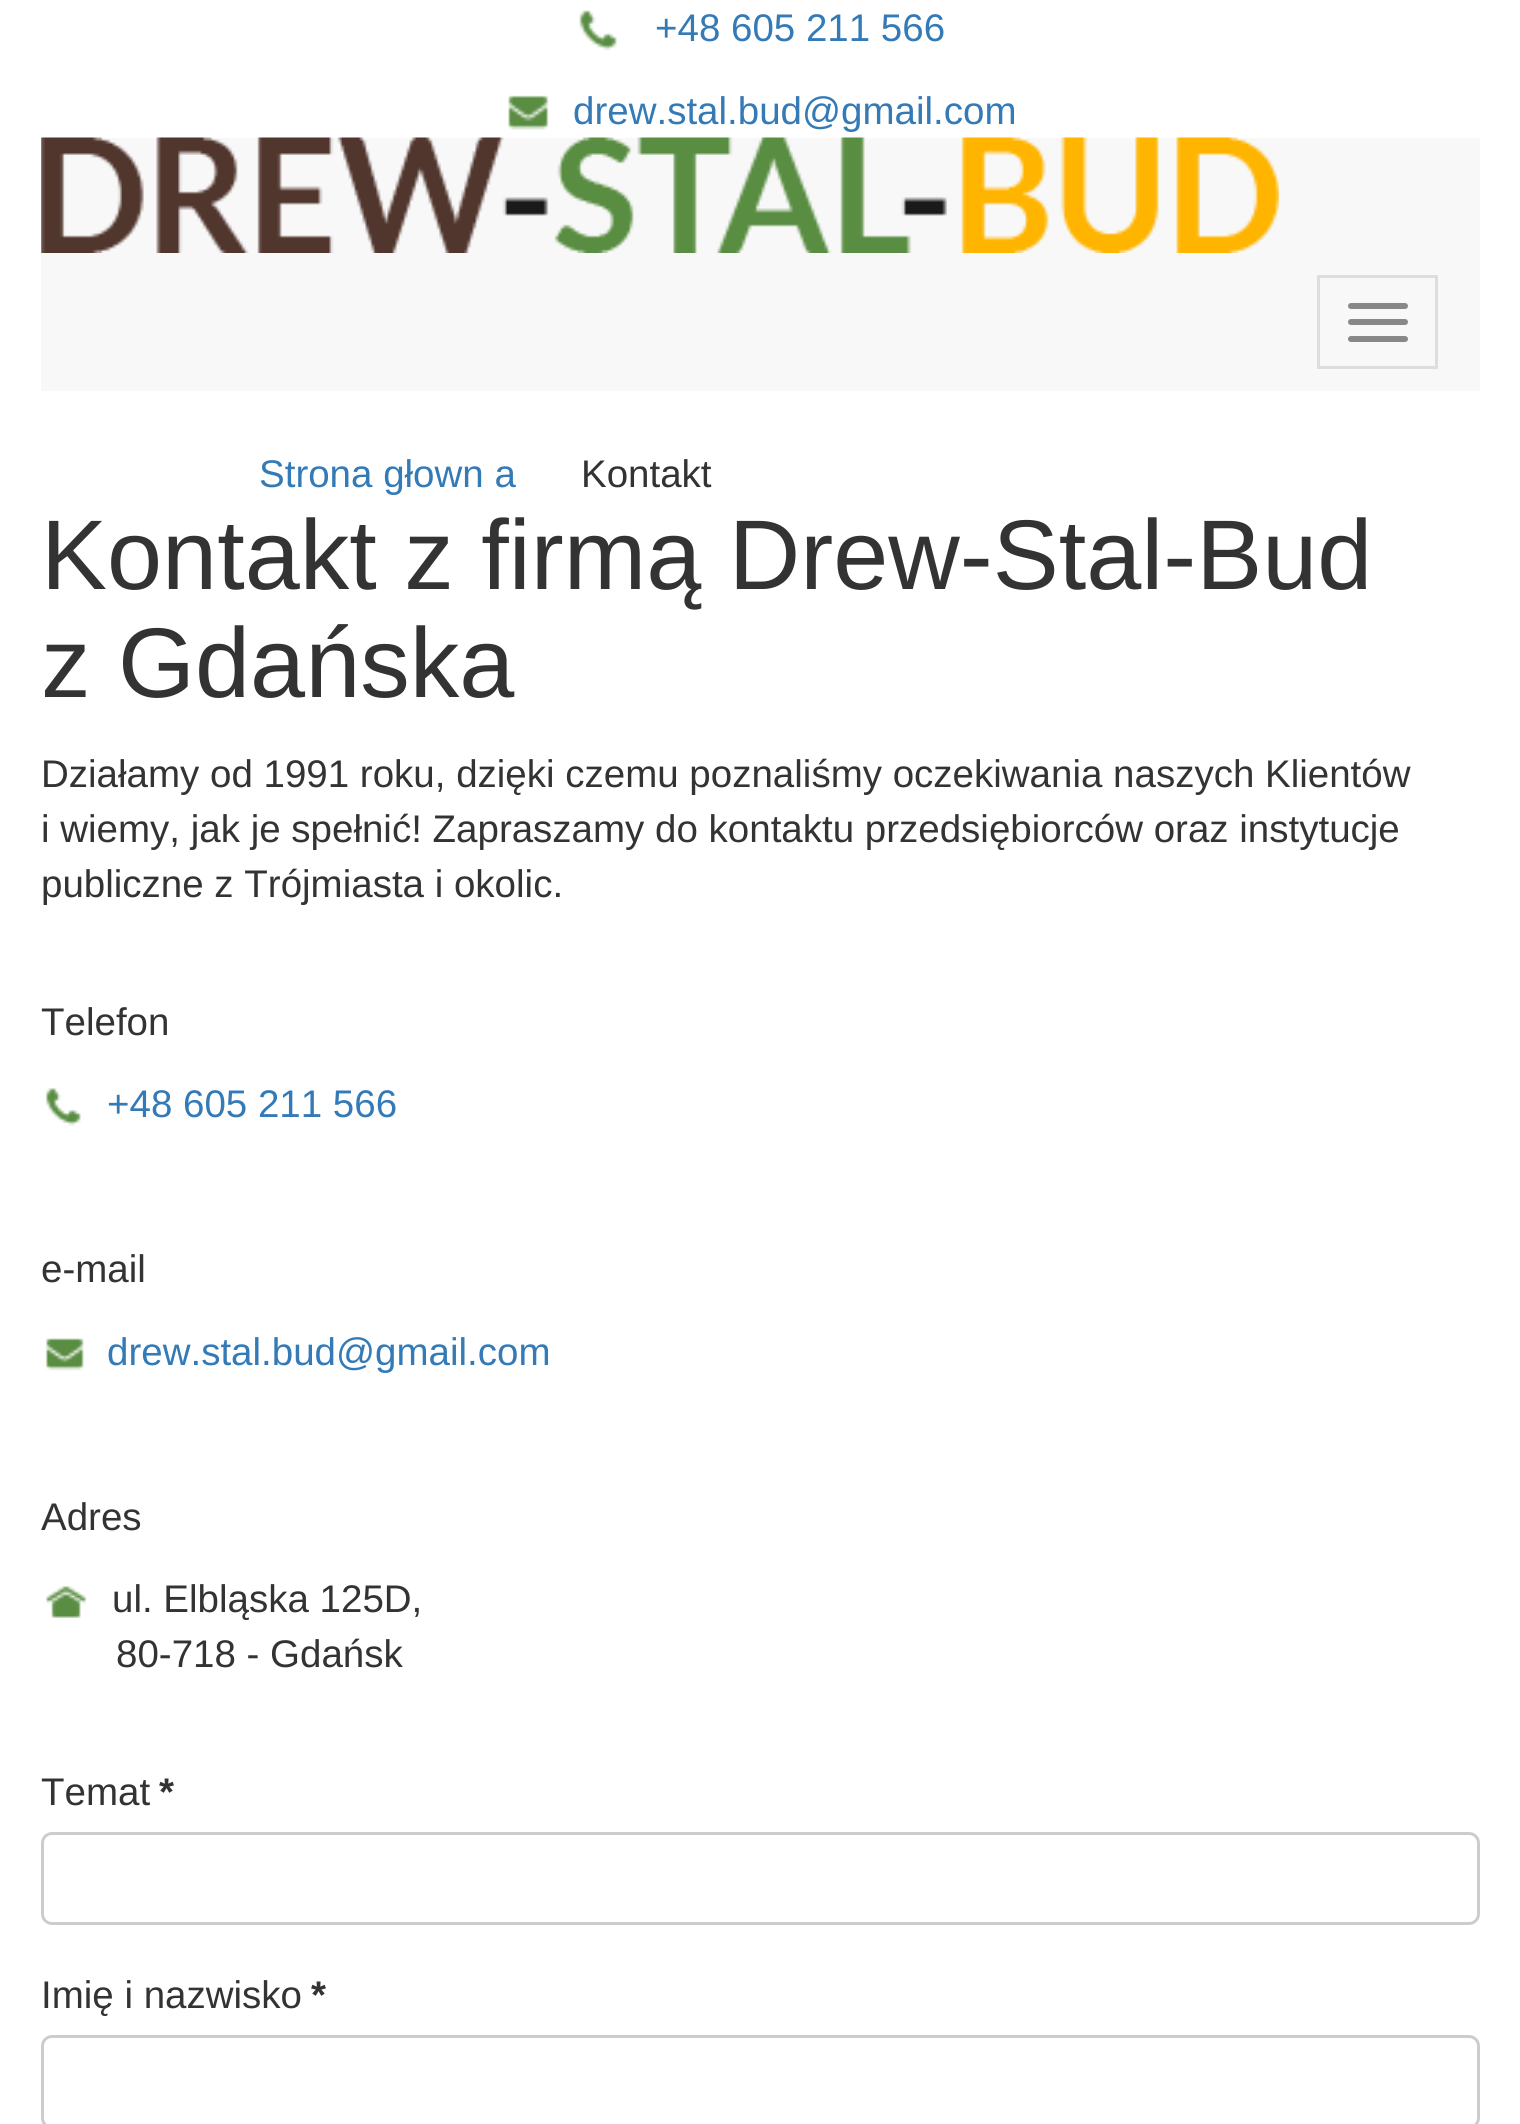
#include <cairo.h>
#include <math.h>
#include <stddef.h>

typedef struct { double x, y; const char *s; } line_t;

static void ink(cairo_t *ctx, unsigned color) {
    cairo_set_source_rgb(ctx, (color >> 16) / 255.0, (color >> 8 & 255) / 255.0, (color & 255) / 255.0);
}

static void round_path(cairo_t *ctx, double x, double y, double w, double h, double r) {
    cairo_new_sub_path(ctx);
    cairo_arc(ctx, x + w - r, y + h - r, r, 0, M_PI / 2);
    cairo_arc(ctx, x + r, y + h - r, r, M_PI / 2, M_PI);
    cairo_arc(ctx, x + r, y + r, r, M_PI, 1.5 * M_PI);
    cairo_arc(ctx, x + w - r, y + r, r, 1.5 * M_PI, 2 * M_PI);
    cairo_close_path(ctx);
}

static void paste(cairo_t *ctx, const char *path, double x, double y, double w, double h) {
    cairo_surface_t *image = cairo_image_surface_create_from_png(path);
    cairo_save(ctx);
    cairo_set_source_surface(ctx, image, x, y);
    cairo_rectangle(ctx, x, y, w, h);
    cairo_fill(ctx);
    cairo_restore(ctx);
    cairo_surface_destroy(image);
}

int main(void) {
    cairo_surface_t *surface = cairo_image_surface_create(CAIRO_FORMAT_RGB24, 1520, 2124);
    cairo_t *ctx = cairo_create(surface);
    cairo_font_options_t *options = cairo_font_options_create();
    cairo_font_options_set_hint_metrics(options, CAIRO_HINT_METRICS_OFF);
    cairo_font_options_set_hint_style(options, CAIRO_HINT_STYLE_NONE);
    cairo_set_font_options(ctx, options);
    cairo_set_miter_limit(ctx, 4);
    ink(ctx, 0xFFFFFF);
    cairo_paint(ctx);
    paste(ctx, "media/1.png", 579, 10, 38, 41);
    cairo_select_font_face(ctx, "Liberation Sans", CAIRO_FONT_SLANT_NORMAL, CAIRO_FONT_WEIGHT_NORMAL);
    cairo_set_font_size(ctx, 38.5);
    ink(ctx, 0x337AB7);
    cairo_move_to(ctx, 655, 41);
    cairo_show_text(ctx, "+48 605 211 566");
    paste(ctx, "media/2.png", 508, 95, 41, 35);
    cairo_move_to(ctx, 573, 124);
    cairo_show_text(ctx, "drew.stal.bud@gmail.com");
    ink(ctx, 0xF8F8F8);
    cairo_rectangle(ctx, 41, 138, 1439, 253);
    cairo_fill(ctx);
    paste(ctx, "media/3.png", 41, 137, 1238, 116);
    cairo_rectangle(ctx, 1318.5, 276.5, 118, 91);
    ink(ctx, 0xDDDDDD);
    cairo_set_line_width(ctx, 3);
    cairo_stroke(ctx);
    ink(ctx, 0x888888);
    round_path(ctx, 1348, 303, 60, 6, 3);
    cairo_fill(ctx);
    round_path(ctx, 1348, 319, 60, 6, 3);
    cairo_fill(ctx);
    round_path(ctx, 1348, 336, 60, 6, 3);
    cairo_fill(ctx);
    ink(ctx, 0x337AB7);
    cairo_move_to(ctx, 259, 487);
    cairo_show_text(ctx, "Strona głown a");
    ink(ctx, 0x333333);
    cairo_move_to(ctx, 581, 487);
    cairo_show_text(ctx, "Kontakt");
    cairo_set_font_size(ctx, 99);
    cairo_move_to(ctx, 41, 589);
    cairo_show_text(ctx, "Kontakt z firmą Drew-Stal-Bud");
    cairo_move_to(ctx, 41, 697);
    cairo_show_text(ctx, "z Gdańska");
    cairo_set_font_size(ctx, 38.5);
    {
        static const line_t items[] = {
            {41, 787, "Działamy od 1991 roku, dzięki czemu poznaliśmy oczekiwania naszych Klientów"},
            {41, 842, "i wiemy, jak je spełnić! Zapraszamy do kontaktu przedsiębiorców oraz instytucje"},
            {41, 897, "publiczne z Trójmiasta i okolic."},
            {41, 1035, "Telefon"},
        };
        for (size_t i = 0; i < sizeof items / sizeof *items; i++) {
            cairo_move_to(ctx, items[i].x, items[i].y);
            cairo_show_text(ctx, items[i].s);
        }
    }
    paste(ctx, "media/4.png", 46, 1088, 35, 38);
    ink(ctx, 0x337AB7);
    cairo_move_to(ctx, 107, 1117);
    cairo_show_text(ctx, "+48 605 211 566");
    ink(ctx, 0x333333);
    cairo_move_to(ctx, 41, 1282);
    cairo_show_text(ctx, "e-mail");
    paste(ctx, "media/5.png", 46, 1338, 38, 33);
    ink(ctx, 0x337AB7);
    cairo_move_to(ctx, 107, 1365);
    cairo_show_text(ctx, "drew.stal.bud@gmail.com");
    ink(ctx, 0x333333);
    cairo_move_to(ctx, 41, 1530);
    cairo_show_text(ctx, "Adres");
    paste(ctx, "media/6.png", 46, 1586, 41, 32);
    {
        static const line_t items[] = {
            {112, 1612, "ul. Elbląska 125D,"},
            {116, 1667, "80-718 - Gdańsk"},
            {41, 1805, "Temat"},
        };
        for (size_t i = 0; i < sizeof items / sizeof *items; i++) {
            cairo_move_to(ctx, items[i].x, items[i].y);
            cairo_show_text(ctx, items[i].s);
        }
    }
    cairo_select_font_face(ctx, "Liberation Sans", CAIRO_FONT_SLANT_NORMAL, CAIRO_FONT_WEIGHT_BOLD);
    cairo_move_to(ctx, 159, 1805);
    cairo_show_text(ctx, "*");
    round_path(ctx, 42.5, 1833.5, 1436, 90, 9.5);
    ink(ctx, 0xCCCCCC);
    cairo_stroke(ctx);
    cairo_select_font_face(ctx, "Liberation Sans", CAIRO_FONT_SLANT_NORMAL, CAIRO_FONT_WEIGHT_NORMAL);
    ink(ctx, 0x333333);
    cairo_move_to(ctx, 41, 2008);
    cairo_show_text(ctx, "Imię i nazwisko");
    cairo_select_font_face(ctx, "Liberation Sans", CAIRO_FONT_SLANT_NORMAL, CAIRO_FONT_WEIGHT_BOLD);
    cairo_move_to(ctx, 311, 2008);
    cairo_show_text(ctx, "*");
    round_path(ctx, 42.5, 2036.5, 1436, 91, 9.5);
    ink(ctx, 0xCCCCCC);
    cairo_stroke(ctx);
    cairo_surface_write_to_png(surface, "image.png");
    cairo_font_options_destroy(options);
    cairo_destroy(ctx);
    cairo_surface_destroy(surface);
    return 0;
}
